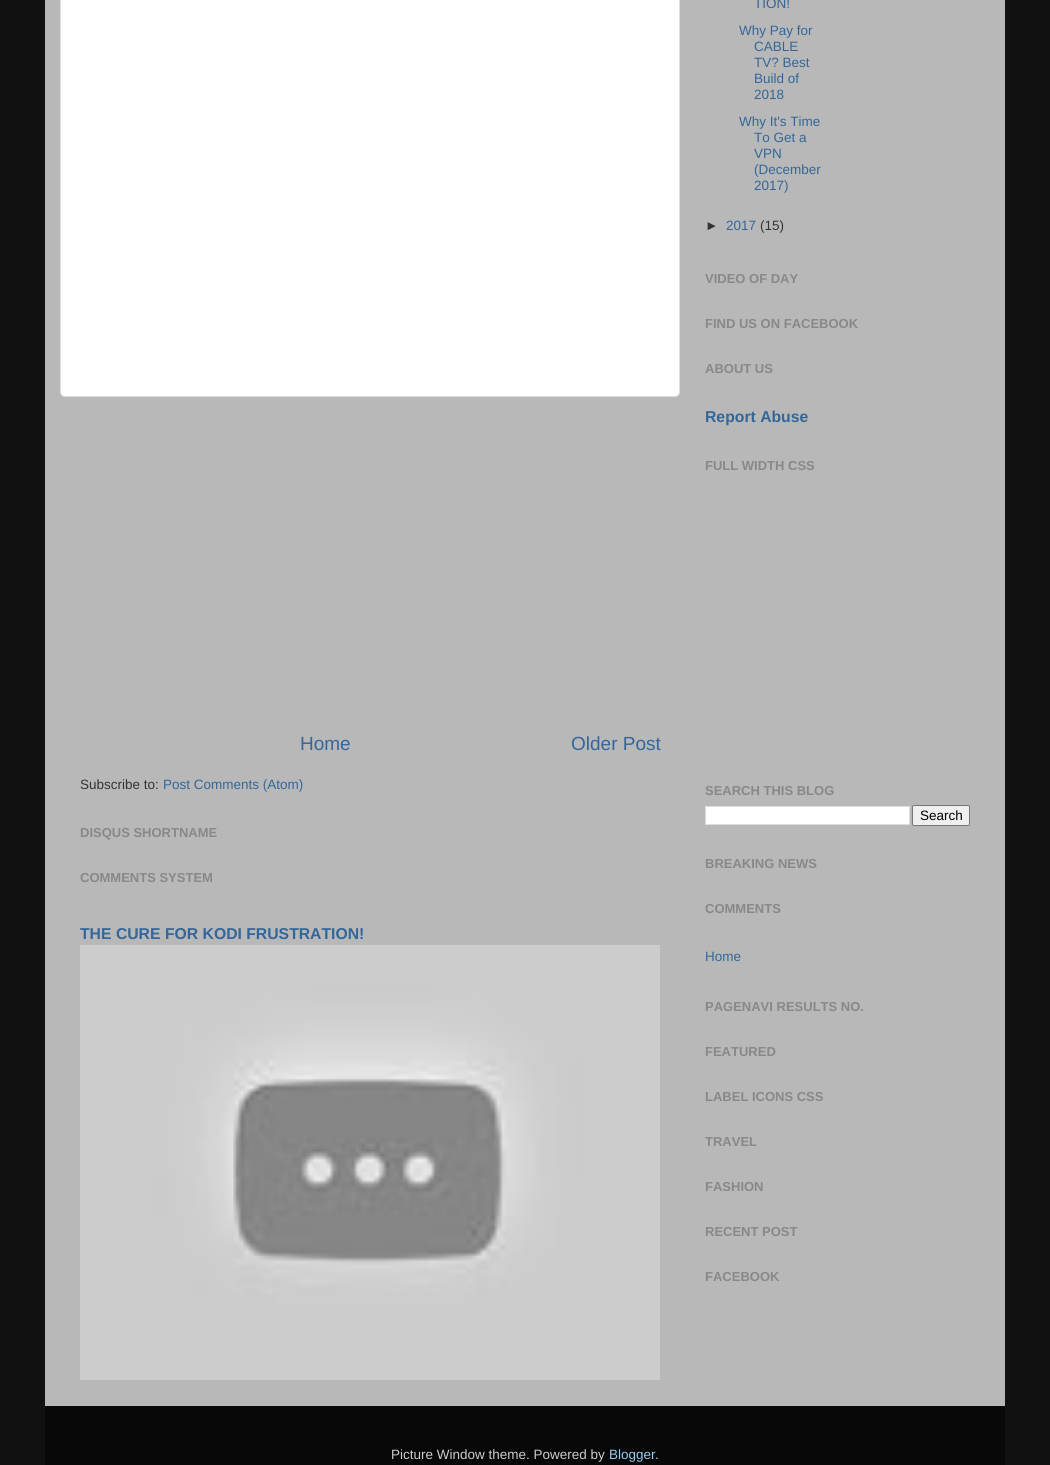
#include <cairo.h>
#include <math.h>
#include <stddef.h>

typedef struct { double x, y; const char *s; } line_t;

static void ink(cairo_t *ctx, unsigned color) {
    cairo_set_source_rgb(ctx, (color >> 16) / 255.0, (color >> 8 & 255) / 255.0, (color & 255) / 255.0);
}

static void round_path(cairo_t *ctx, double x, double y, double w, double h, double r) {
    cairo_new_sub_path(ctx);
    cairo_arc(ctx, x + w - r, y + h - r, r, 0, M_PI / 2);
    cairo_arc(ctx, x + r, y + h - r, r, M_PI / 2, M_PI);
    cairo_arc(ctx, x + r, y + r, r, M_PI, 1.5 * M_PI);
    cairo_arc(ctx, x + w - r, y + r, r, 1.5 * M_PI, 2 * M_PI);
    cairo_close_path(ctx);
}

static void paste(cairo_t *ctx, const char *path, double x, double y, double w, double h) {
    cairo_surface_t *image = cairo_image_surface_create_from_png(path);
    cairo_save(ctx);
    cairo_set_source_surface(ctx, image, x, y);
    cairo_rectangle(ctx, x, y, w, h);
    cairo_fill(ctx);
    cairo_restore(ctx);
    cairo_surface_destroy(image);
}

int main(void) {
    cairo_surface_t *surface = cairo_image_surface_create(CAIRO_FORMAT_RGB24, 1050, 1465);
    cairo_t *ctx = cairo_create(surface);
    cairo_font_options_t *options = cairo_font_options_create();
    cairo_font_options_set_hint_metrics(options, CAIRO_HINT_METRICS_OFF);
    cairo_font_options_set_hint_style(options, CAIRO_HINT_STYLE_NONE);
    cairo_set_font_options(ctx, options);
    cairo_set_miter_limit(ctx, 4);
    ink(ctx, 0x111111);
    cairo_paint(ctx);
    ink(ctx, 0xB8B8B8);
    cairo_rectangle(ctx, 45, 0, 960, 1406);
    cairo_fill(ctx);
    ink(ctx, 0xFFFFFF);
    round_path(ctx, 60.5, -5.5, 619, 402, 4.5);
    cairo_fill_preserve(ctx);
    ink(ctx, 0xDDDDDD);
    cairo_set_line_width(ctx, 1);
    cairo_stroke(ctx);
    cairo_select_font_face(ctx, "Liberation Sans", CAIRO_FONT_SLANT_NORMAL, CAIRO_FONT_WEIGHT_NORMAL);
    cairo_set_font_size(ctx, 19);
    ink(ctx, 0x336699);
    cairo_move_to(ctx, 300, 750);
    cairo_show_text(ctx, "Home");
    cairo_move_to(ctx, 571, 750);
    cairo_show_text(ctx, "Older Post");
    cairo_set_font_size(ctx, 13.5);
    ink(ctx, 0x333333);
    cairo_move_to(ctx, 80, 789);
    cairo_show_text(ctx, "Subscribe to:");
    ink(ctx, 0x336699);
    cairo_move_to(ctx, 163, 789);
    cairo_show_text(ctx, "Post Comments (Atom)");
    cairo_select_font_face(ctx, "Liberation Sans", CAIRO_FONT_SLANT_NORMAL, CAIRO_FONT_WEIGHT_BOLD);
    cairo_set_font_size(ctx, 13);
    ink(ctx, 0x888888);
    cairo_move_to(ctx, 80, 837);
    cairo_show_text(ctx, "DISQUS SHORTNAME");
    cairo_move_to(ctx, 80, 882);
    cairo_show_text(ctx, "COMMENTS SYSTEM");
    cairo_set_font_size(ctx, 15.75);
    ink(ctx, 0x336699);
    cairo_move_to(ctx, 80, 939);
    cairo_show_text(ctx, "THE CURE FOR KODI FRUSTRATION!");
    paste(ctx, "media/1.png", 80, 945, 580, 435);
    cairo_select_font_face(ctx, "Liberation Sans", CAIRO_FONT_SLANT_NORMAL, CAIRO_FONT_WEIGHT_NORMAL);
    cairo_set_font_size(ctx, 13.5);
    {
        static const line_t items[] = {
            {754, 8, "TION!"},
            {739, 35, "Why Pay for"},
            {754, 51, "CABLE"},
            {754, 67, "TV? Best"},
            {754, 83, "Build of"},
            {754, 99, "2018"},
            {739, 126, "Why It's Time"},
            {754, 142, "To Get a"},
            {754, 158, "VPN"},
            {754, 174, "(December"},
            {754, 190, "2017)"},
        };
        for (size_t i = 0; i < sizeof items / sizeof *items; i++) {
            cairo_move_to(ctx, items[i].x, items[i].y);
            cairo_show_text(ctx, items[i].s);
        }
    }
    ink(ctx, 0x333333);
    cairo_move_to(ctx, 705, 230);
    cairo_show_text(ctx, "►");
    ink(ctx, 0x336699);
    cairo_move_to(ctx, 726, 230);
    cairo_show_text(ctx, "2017");
    ink(ctx, 0x333333);
    cairo_move_to(ctx, 760, 230);
    cairo_show_text(ctx, "(15)");
    cairo_select_font_face(ctx, "Liberation Sans", CAIRO_FONT_SLANT_NORMAL, CAIRO_FONT_WEIGHT_BOLD);
    cairo_set_font_size(ctx, 13);
    ink(ctx, 0x888888);
    {
        static const line_t items[] = {
            {705, 283, "VIDEO OF DAY"},
            {705, 328, "FIND US ON FACEBOOK"},
            {705, 373, "ABOUT US"},
        };
        for (size_t i = 0; i < sizeof items / sizeof *items; i++) {
            cairo_move_to(ctx, items[i].x, items[i].y);
            cairo_show_text(ctx, items[i].s);
        }
    }
    cairo_set_font_size(ctx, 15.75);
    ink(ctx, 0x336699);
    cairo_move_to(ctx, 705, 422);
    cairo_show_text(ctx, "Report Abuse");
    cairo_set_font_size(ctx, 13);
    ink(ctx, 0x888888);
    cairo_move_to(ctx, 705, 470);
    cairo_show_text(ctx, "FULL WIDTH CSS");
    cairo_move_to(ctx, 705, 795);
    cairo_show_text(ctx, "SEARCH THIS BLOG");
    ink(ctx, 0xFFFFFF);
    cairo_rectangle(ctx, 705.5, 806.5, 204, 18);
    cairo_fill_preserve(ctx);
    ink(ctx, 0xDDDDDD);
    cairo_stroke(ctx);
    ink(ctx, 0xEFEFEF);
    round_path(ctx, 912.5, 805.5, 57, 20, 1.5);
    cairo_fill_preserve(ctx);
    ink(ctx, 0x767676);
    cairo_stroke(ctx);
    cairo_select_font_face(ctx, "Liberation Sans", CAIRO_FONT_SLANT_NORMAL, CAIRO_FONT_WEIGHT_NORMAL);
    cairo_set_font_size(ctx, 13.5);
    ink(ctx, 0x000000);
    cairo_move_to(ctx, 920, 820);
    cairo_show_text(ctx, "Search");
    cairo_select_font_face(ctx, "Liberation Sans", CAIRO_FONT_SLANT_NORMAL, CAIRO_FONT_WEIGHT_BOLD);
    cairo_set_font_size(ctx, 13);
    ink(ctx, 0x888888);
    cairo_move_to(ctx, 705, 868);
    cairo_show_text(ctx, "BREAKING NEWS");
    cairo_move_to(ctx, 705, 913);
    cairo_show_text(ctx, "COMMENTS");
    cairo_select_font_face(ctx, "Liberation Sans", CAIRO_FONT_SLANT_NORMAL, CAIRO_FONT_WEIGHT_NORMAL);
    cairo_set_font_size(ctx, 13.5);
    ink(ctx, 0x336699);
    cairo_move_to(ctx, 705, 961);
    cairo_show_text(ctx, "Home");
    cairo_select_font_face(ctx, "Liberation Sans", CAIRO_FONT_SLANT_NORMAL, CAIRO_FONT_WEIGHT_BOLD);
    cairo_set_font_size(ctx, 13);
    ink(ctx, 0x888888);
    {
        static const line_t items[] = {
            {705, 1011, "PAGENAVI RESULTS NO."},
            {705, 1056, "FEATURED"},
            {705, 1101, "LABEL ICONS CSS"},
            {705, 1146, "TRAVEL"},
            {705, 1191, "FASHION"},
            {705, 1236, "RECENT POST"},
            {705, 1281, "FACEBOOK"},
        };
        for (size_t i = 0; i < sizeof items / sizeof *items; i++) {
            cairo_move_to(ctx, items[i].x, items[i].y);
            cairo_show_text(ctx, items[i].s);
        }
    }
    ink(ctx, 0x080808);
    cairo_rectangle(ctx, 45, 1406, 960, 59);
    cairo_fill(ctx);
    cairo_select_font_face(ctx, "Liberation Sans", CAIRO_FONT_SLANT_NORMAL, CAIRO_FONT_WEIGHT_NORMAL);
    cairo_set_font_size(ctx, 13.5);
    ink(ctx, 0xCCCCCC);
    cairo_move_to(ctx, 391, 1459);
    cairo_show_text(ctx, "Picture Window theme. Powered by");
    ink(ctx, 0x99CCEE);
    cairo_move_to(ctx, 609, 1459);
    cairo_show_text(ctx, "Blogger");
    ink(ctx, 0xCCCCCC);
    cairo_move_to(ctx, 655, 1459);
    cairo_show_text(ctx, ".");
    cairo_surface_write_to_png(surface, "image.png");
    cairo_font_options_destroy(options);
    cairo_destroy(ctx);
    cairo_surface_destroy(surface);
    return 0;
}
